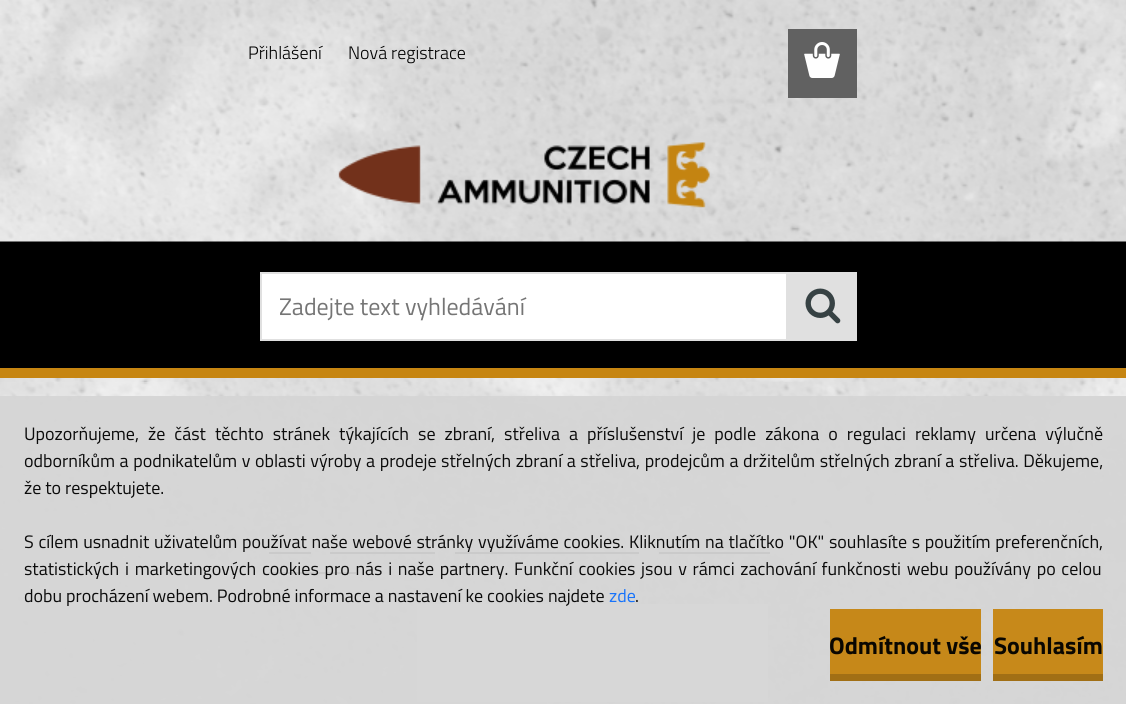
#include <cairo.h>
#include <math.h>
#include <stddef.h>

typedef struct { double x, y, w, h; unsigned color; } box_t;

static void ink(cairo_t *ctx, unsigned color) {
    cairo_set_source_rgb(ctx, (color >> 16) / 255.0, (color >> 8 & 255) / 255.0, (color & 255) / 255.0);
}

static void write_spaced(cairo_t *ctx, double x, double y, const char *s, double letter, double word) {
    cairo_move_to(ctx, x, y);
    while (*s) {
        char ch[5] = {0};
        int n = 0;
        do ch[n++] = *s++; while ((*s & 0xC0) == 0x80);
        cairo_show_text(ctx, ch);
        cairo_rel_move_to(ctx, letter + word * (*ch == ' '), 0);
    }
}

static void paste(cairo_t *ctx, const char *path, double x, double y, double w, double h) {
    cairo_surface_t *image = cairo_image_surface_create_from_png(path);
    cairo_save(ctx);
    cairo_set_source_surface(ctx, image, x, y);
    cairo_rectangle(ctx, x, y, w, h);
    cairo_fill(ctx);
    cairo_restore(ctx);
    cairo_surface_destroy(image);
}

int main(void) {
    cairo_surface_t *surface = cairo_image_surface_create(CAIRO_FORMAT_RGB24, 1126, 704);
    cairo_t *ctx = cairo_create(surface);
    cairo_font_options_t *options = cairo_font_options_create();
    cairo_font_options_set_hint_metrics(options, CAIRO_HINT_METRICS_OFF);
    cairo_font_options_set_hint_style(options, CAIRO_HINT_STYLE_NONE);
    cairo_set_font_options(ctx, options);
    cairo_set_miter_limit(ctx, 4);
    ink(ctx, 0xFFFFFF);
    cairo_paint(ctx);
    paste(ctx, "media/1.png", 0, 378, 1126, 326);
    ink(ctx, 0x000000);
    cairo_rectangle(ctx, 0, 241, 1126, 127);
    cairo_fill(ctx);
    paste(ctx, "media/3.png", 0, 0, 1126, 242);
    cairo_select_font_face(ctx, "Titillium Web Light", CAIRO_FONT_SLANT_NORMAL, CAIRO_FONT_WEIGHT_NORMAL);
    cairo_set_font_size(ctx, 18);
    cairo_move_to(ctx, 248, 59);
    cairo_show_text(ctx, "Přihlášení");
    cairo_move_to(ctx, 348, 59);
    cairo_show_text(ctx, "Nová registrace");
    ink(ctx, 0x616161);
    cairo_rectangle(ctx, 788, 29, 69, 69);
    cairo_fill(ctx);
    paste(ctx, "media/2.png", 804, 42, 36, 36);
    {
        static const box_t items[] = {
            {269, 552, 42, 2, 0xCACACA},
            {330, 552, 105, 2, 0xCACACA},
            {455, 552, 184, 2, 0xCACACA},
            {659, 552, 111, 2, 0xCACACA},
            {269, 572, 87, 2, 0xCACACA},
            {417, 604, 351, 98, 0xD7D7D7},
            {0, 368, 1126, 10, 0xC68511},
        };
        for (size_t i = 0; i < sizeof items / sizeof *items; i++) {
            ink(ctx, items[i].color);
            cairo_rectangle(ctx, items[i].x, items[i].y, items[i].w, items[i].h);
            cairo_fill(ctx);
        }
    }
    paste(ctx, "media/4.png", 338, 142, 372, 66);
    ink(ctx, 0xFFFFFF);
    cairo_rectangle(ctx, 261, 273, 526, 67);
    cairo_fill_preserve(ctx);
    ink(ctx, 0xE0E0E0);
    cairo_stroke(ctx);
    cairo_select_font_face(ctx, "Titillium Web", CAIRO_FONT_SLANT_NORMAL, CAIRO_FONT_WEIGHT_NORMAL);
    cairo_set_font_size(ctx, 24);
    ink(ctx, 0x757575);
    cairo_move_to(ctx, 279, 315);
    cairo_show_text(ctx, "Zadejte text vyhledávání");
    ink(ctx, 0xE0E0E0);
    cairo_rectangle(ctx, 788, 272, 69, 69);
    cairo_fill(ctx);
    paste(ctx, "media/5.png", 805, 288, 36, 36);
    cairo_set_font_size(ctx, 18);
    ink(ctx, 0x0B0B0B);
    write_spaced(ctx, 24, 440, "Upozorňujeme, že část těchto stránek týkajících se zbraní, střeliva a příslušenství je podle zákona o regulaci reklamy určena výlučně", 0, 5.1);
    write_spaced(ctx, 24, 467, "odborníkům a podnikatelům v oblasti výroby a prodeje střelných zbraní a střeliva, prodejcům a držitelům střelných zbraní a střeliva. Děkujeme,", 0, 0.6);
    cairo_move_to(ctx, 24, 494);
    cairo_show_text(ctx, "že to respektujete.");
    write_spaced(ctx, 24, 548, "S cílem usnadnit uživatelům používat naše webové stránky využíváme cookies. Kliknutím na tlačítko \"OK\" souhlasíte s použitím preferenčních,", 0, 0.7);
    write_spaced(ctx, 24, 575, "statistických i marketingových cookies pro nás i naše partnery. Funkční cookies jsou v rámci zachování funkčnosti webu používány po celou", 0, 1.75);
    cairo_move_to(ctx, 24, 602);
    cairo_show_text(ctx, "dobu procházení webem. Podrobné informace a nastavení ke cookies najdete");
    ink(ctx, 0x1773FB);
    cairo_move_to(ctx, 609, 602);
    cairo_show_text(ctx, "zde");
    ink(ctx, 0x0B0B0B);
    cairo_move_to(ctx, 635, 602);
    cairo_show_text(ctx, ".");
    cairo_set_source_rgba(ctx, 0.776, 0.522, 0.063, 0.95);
    cairo_rectangle(ctx, 830, 609, 151, 65);
    cairo_fill(ctx);
    ink(ctx, 0xA16F15);
    cairo_rectangle(ctx, 830, 674, 151, 7);
    cairo_fill(ctx);
    cairo_select_font_face(ctx, "Titillium Web", CAIRO_FONT_SLANT_NORMAL, CAIRO_FONT_WEIGHT_BOLD);
    cairo_set_font_size(ctx, 24);
    ink(ctx, 0x0A0701);
    cairo_move_to(ctx, 829, 654);
    cairo_show_text(ctx, "Odmítnout vše");
    ink(ctx, 0xC7891A);
    cairo_rectangle(ctx, 993, 609, 110, 65);
    cairo_fill(ctx);
    ink(ctx, 0xA16F15);
    cairo_rectangle(ctx, 993, 674, 110, 7);
    cairo_fill(ctx);
    ink(ctx, 0x0A0701);
    cairo_move_to(ctx, 994, 654);
    cairo_show_text(ctx, "Souhlasím");
    cairo_surface_write_to_png(surface, "image.png");
    cairo_font_options_destroy(options);
    cairo_destroy(ctx);
    cairo_surface_destroy(surface);
    return 0;
}
